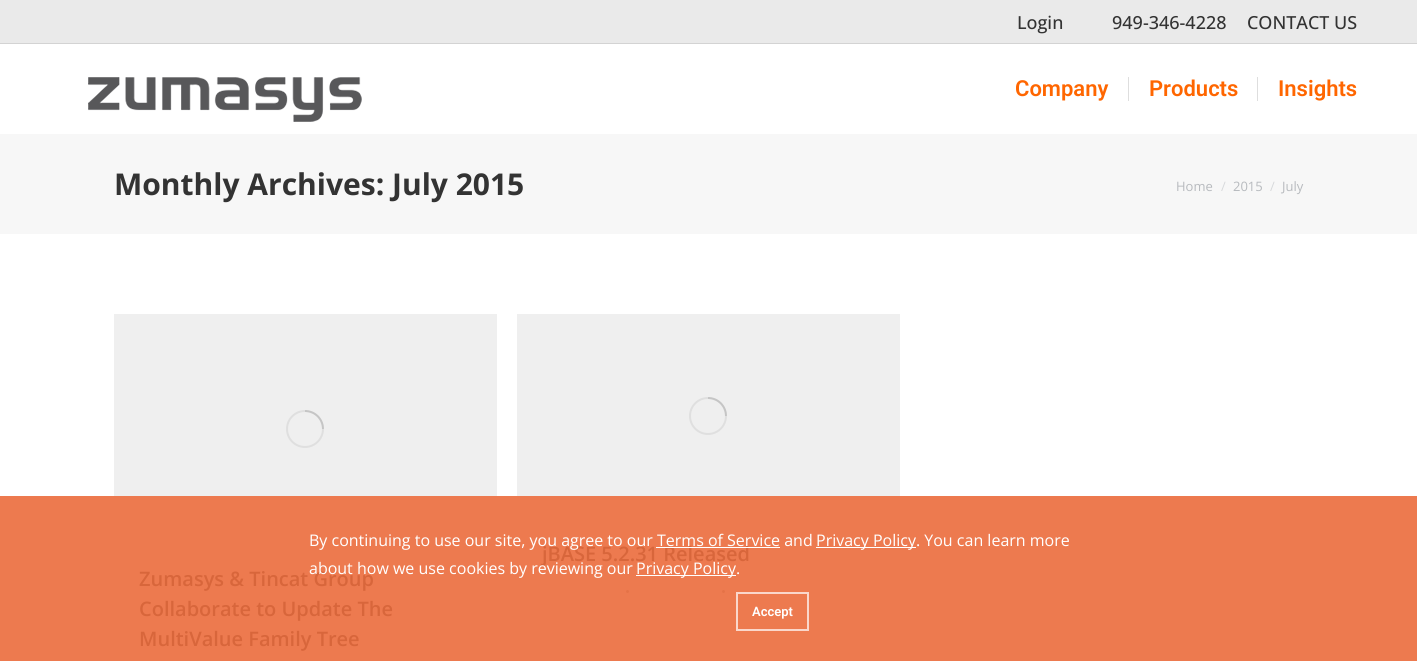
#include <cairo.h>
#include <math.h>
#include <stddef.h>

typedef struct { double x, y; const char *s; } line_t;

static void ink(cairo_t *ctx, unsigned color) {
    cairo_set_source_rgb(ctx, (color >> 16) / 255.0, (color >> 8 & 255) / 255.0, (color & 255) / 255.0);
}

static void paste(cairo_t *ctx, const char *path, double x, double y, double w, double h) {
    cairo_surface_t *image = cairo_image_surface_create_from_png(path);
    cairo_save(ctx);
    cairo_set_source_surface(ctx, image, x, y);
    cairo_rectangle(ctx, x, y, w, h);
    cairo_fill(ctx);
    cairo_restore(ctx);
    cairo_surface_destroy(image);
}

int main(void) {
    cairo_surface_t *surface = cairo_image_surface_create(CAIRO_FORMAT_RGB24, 1417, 661);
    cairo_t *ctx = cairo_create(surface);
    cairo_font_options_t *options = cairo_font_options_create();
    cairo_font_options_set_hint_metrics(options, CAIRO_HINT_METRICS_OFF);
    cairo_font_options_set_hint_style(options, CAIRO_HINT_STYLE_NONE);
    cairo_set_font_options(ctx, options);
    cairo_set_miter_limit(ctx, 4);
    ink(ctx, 0xFFFFFF);
    cairo_paint(ctx);
    ink(ctx, 0xED7A4F);
    cairo_rectangle(ctx, 0, 496, 1417, 165);
    cairo_fill(ctx);
    ink(ctx, 0xEAEAEA);
    cairo_rectangle(ctx, 0, 0, 1417, 43);
    cairo_fill(ctx);
    cairo_select_font_face(ctx, "Open Sans Medium", CAIRO_FONT_SLANT_NORMAL, CAIRO_FONT_WEIGHT_NORMAL);
    cairo_set_font_size(ctx, 18);
    ink(ctx, 0x333333);
    {
        static const line_t items[] = {
            {1017, 29, "Login"},
            {1112, 29, "949-346-4228"},
            {1247, 29, "CONTACT US"},
        };
        for (size_t i = 0; i < sizeof items / sizeof *items; i++) {
            cairo_move_to(ctx, items[i].x, items[i].y);
            cairo_show_text(ctx, items[i].s);
        }
    }
    ink(ctx, 0xD3D3D3);
    cairo_rectangle(ctx, 0, 43, 1417, 1);
    cairo_fill(ctx);
    paste(ctx, "media/1.png", 88, 77, 274, 45);
    cairo_select_font_face(ctx, "Roboto SemiBold", CAIRO_FONT_SLANT_NORMAL, CAIRO_FONT_WEIGHT_NORMAL);
    cairo_set_font_size(ctx, 22);
    ink(ctx, 0xFF6600);
    cairo_move_to(ctx, 1015, 96);
    cairo_show_text(ctx, "Company");
    ink(ctx, 0xDEDEDE);
    cairo_rectangle(ctx, 1128, 77, 1, 24);
    cairo_fill(ctx);
    ink(ctx, 0xFF6600);
    cairo_move_to(ctx, 1149, 96);
    cairo_show_text(ctx, "Products");
    ink(ctx, 0xDEDEDE);
    cairo_rectangle(ctx, 1257, 77, 1, 24);
    cairo_fill(ctx);
    ink(ctx, 0xFF6600);
    cairo_move_to(ctx, 1278, 96);
    cairo_show_text(ctx, "Insights");
    ink(ctx, 0xF7F7F7);
    cairo_rectangle(ctx, 0, 134, 1417, 100);
    cairo_fill(ctx);
    cairo_select_font_face(ctx, "Open Sans", CAIRO_FONT_SLANT_NORMAL, CAIRO_FONT_WEIGHT_BOLD);
    cairo_set_font_size(ctx, 30);
    ink(ctx, 0x333333);
    cairo_move_to(ctx, 114, 195);
    cairo_show_text(ctx, "Monthly Archives: July 2015");
    cairo_select_font_face(ctx, "Open Sans", CAIRO_FONT_SLANT_NORMAL, CAIRO_FONT_WEIGHT_NORMAL);
    cairo_set_font_size(ctx, 13);
    ink(ctx, 0xB7BABE);
    cairo_move_to(ctx, 1176, 191);
    cairo_show_text(ctx, "Home");
    ink(ctx, 0xD7D9DB);
    cairo_move_to(ctx, 1221, 191);
    cairo_show_text(ctx, "/");
    ink(ctx, 0xB7BABE);
    cairo_move_to(ctx, 1233, 191);
    cairo_show_text(ctx, "2015");
    ink(ctx, 0xD7D9DB);
    cairo_move_to(ctx, 1270, 191);
    cairo_show_text(ctx, "/");
    ink(ctx, 0xB7BABE);
    cairo_move_to(ctx, 1282, 191);
    cairo_show_text(ctx, "July");
    ink(ctx, 0xEFEFEF);
    cairo_rectangle(ctx, 517, 314, 383, 182);
    cairo_fill(ctx);
    cairo_arc(ctx, 708, 416, 18, 0, 2 * M_PI);
    ink(ctx, 0xDFDFDF);
    cairo_stroke(ctx);
    cairo_new_path(ctx);
    cairo_move_to(ctx, 726, 416);
    cairo_curve_to(ctx, 726, 406, 718, 398, 708, 398);
    cairo_set_source_rgba(ctx, 0.478, 0.478, 0.478, 0.25);
    cairo_stroke(ctx);
    cairo_select_font_face(ctx, "Open Sans SemiBold", CAIRO_FONT_SLANT_NORMAL, CAIRO_FONT_WEIGHT_NORMAL);
    cairo_set_font_size(ctx, 20);
    ink(ctx, 0xD8663B);
    cairo_move_to(ctx, 542, 561);
    cairo_show_text(ctx, "jBASE 5.2.31 Released");
    ink(ctx, 0xE57247);
    cairo_new_path(ctx);
    cairo_arc(ctx, 627.5, 591.5, 1.5, 0, 2 * M_PI);
    cairo_fill(ctx);
    cairo_arc(ctx, 723.5, 591.5, 1.5, 0, 2 * M_PI);
    cairo_fill(ctx);
    ink(ctx, 0xEFEFEF);
    cairo_rectangle(ctx, 114, 314, 383, 182);
    cairo_fill(ctx);
    cairo_arc(ctx, 305, 429, 18, 0, 2 * M_PI);
    ink(ctx, 0xDFDFDF);
    cairo_stroke(ctx);
    cairo_new_path(ctx);
    cairo_move_to(ctx, 323, 429);
    cairo_curve_to(ctx, 323, 419, 315, 411, 305, 411);
    cairo_set_source_rgba(ctx, 0.478, 0.478, 0.478, 0.25);
    cairo_stroke(ctx);
    ink(ctx, 0xD8663B);
    {
        static const line_t items[] = {
            {139, 586, "Zumasys & Tincat Group"},
            {139, 616, "Collaborate to Update The"},
            {139, 646, "MultiValue Family Tree"},
        };
        for (size_t i = 0; i < sizeof items / sizeof *items; i++) {
            cairo_move_to(ctx, items[i].x, items[i].y);
            cairo_show_text(ctx, items[i].s);
        }
    }
    cairo_select_font_face(ctx, "Open Sans", CAIRO_FONT_SLANT_NORMAL, CAIRO_FONT_WEIGHT_NORMAL);
    cairo_set_font_size(ctx, 16);
    ink(ctx, 0xFFFFFF);
    cairo_move_to(ctx, 309, 546);
    cairo_show_text(ctx, "By continuing to use our site, you agree to our Terms of Service and");
    cairo_rectangle(ctx, 816, 547, 100, 1);
    cairo_fill(ctx);
    cairo_move_to(ctx, 816, 546);
    cairo_show_text(ctx, "Privacy Policy. You can learn more");
    cairo_rectangle(ctx, 656, 547, 124, 1);
    cairo_fill(ctx);
    cairo_move_to(ctx, 309, 574);
    cairo_show_text(ctx, "about how we use cookies by reviewing our");
    cairo_rectangle(ctx, 636, 575, 100, 1);
    cairo_fill(ctx);
    cairo_move_to(ctx, 636, 574);
    cairo_show_text(ctx, "Privacy Policy.");
    cairo_rectangle(ctx, 737, 593, 71, 37);
    cairo_set_source_rgba(ctx, 1, 1, 1, 0.7);
    cairo_stroke(ctx);
    cairo_select_font_face(ctx, "Roboto SemiBold", CAIRO_FONT_SLANT_NORMAL, CAIRO_FONT_WEIGHT_NORMAL);
    cairo_set_font_size(ctx, 13);
    ink(ctx, 0xFFFFFF);
    cairo_move_to(ctx, 752, 616);
    cairo_show_text(ctx, "Accept");
    cairo_surface_write_to_png(surface, "image.png");
    cairo_font_options_destroy(options);
    cairo_destroy(ctx);
    cairo_surface_destroy(surface);
    return 0;
}
